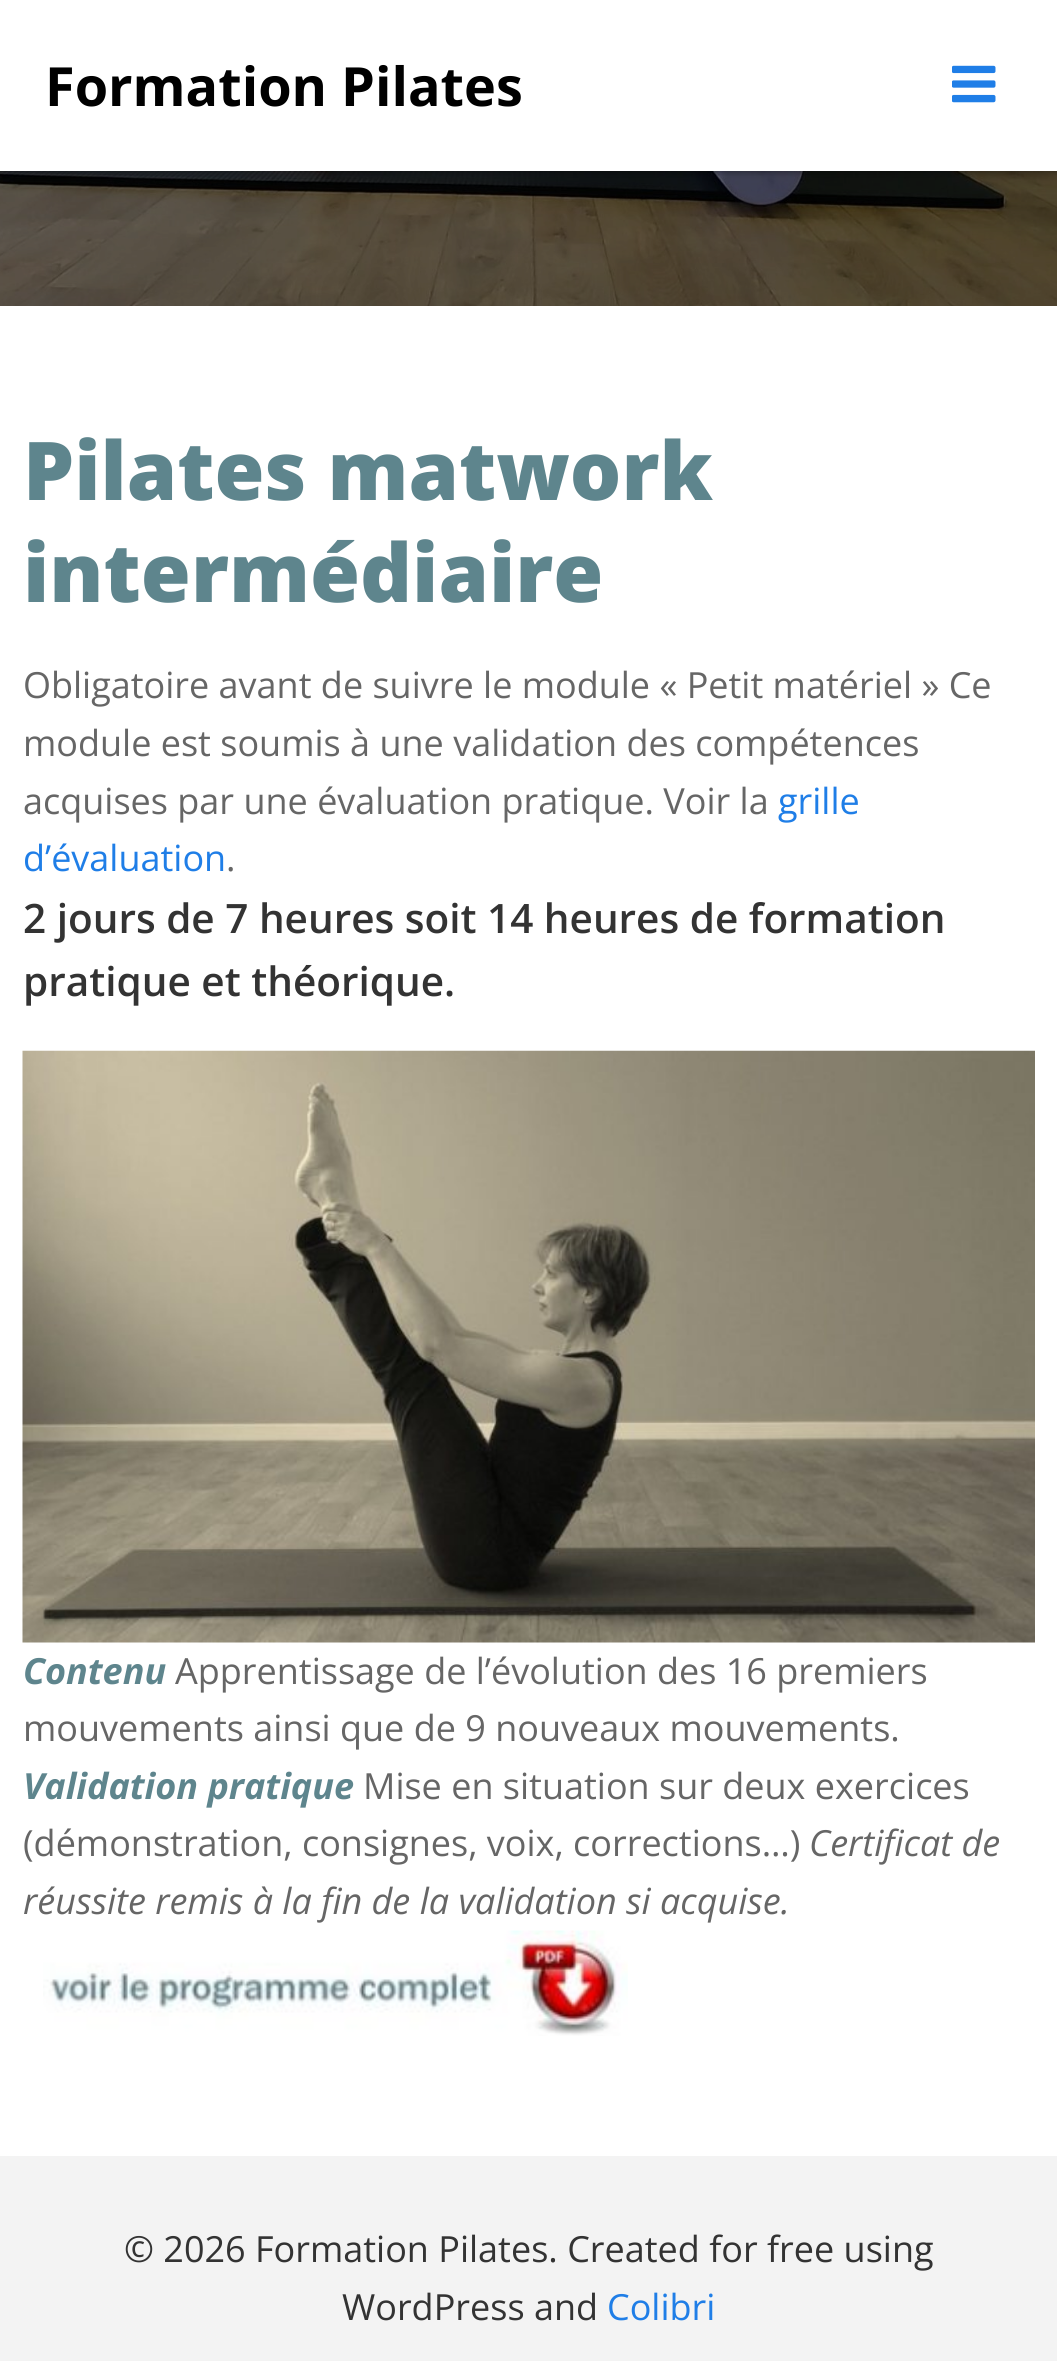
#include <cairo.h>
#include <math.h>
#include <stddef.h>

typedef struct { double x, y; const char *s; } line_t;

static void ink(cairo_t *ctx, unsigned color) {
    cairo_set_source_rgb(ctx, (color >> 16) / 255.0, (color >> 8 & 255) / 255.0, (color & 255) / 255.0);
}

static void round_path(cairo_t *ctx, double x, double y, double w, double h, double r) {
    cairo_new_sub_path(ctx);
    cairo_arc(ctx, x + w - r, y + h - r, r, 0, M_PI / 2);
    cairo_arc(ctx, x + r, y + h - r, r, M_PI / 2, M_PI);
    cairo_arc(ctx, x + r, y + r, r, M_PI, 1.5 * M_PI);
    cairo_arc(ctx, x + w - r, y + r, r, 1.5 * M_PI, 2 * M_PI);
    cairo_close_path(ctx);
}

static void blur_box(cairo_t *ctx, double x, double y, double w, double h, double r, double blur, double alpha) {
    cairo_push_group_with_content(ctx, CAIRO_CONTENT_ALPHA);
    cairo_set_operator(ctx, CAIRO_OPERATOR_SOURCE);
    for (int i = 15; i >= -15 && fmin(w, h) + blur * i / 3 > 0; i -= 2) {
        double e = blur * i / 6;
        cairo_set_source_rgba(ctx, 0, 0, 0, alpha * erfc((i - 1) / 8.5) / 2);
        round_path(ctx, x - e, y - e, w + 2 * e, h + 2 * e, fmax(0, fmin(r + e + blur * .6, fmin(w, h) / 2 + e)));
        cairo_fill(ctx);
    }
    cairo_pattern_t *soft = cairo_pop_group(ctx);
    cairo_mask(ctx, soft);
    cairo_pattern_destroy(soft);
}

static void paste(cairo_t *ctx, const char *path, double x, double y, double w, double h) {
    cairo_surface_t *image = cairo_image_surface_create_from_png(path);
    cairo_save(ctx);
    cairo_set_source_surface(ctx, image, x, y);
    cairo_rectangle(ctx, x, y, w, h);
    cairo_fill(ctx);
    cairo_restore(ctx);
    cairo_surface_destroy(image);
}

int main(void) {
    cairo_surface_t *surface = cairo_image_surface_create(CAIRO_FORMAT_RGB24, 1057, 2361);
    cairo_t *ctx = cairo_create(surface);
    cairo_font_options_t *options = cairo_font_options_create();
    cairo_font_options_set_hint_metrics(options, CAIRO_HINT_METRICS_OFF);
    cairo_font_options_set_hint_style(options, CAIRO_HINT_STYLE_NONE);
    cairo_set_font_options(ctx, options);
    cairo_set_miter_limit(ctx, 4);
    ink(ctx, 0xFFFFFF);
    cairo_paint(ctx);
    paste(ctx, "media/2.png", 0, 171, 1057, 135);
    ink(ctx, 0x000000);
    blur_box(ctx, 0, 0, 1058, 171, 0, 4.5, 0.5);
    ink(ctx, 0xFFFFFF);
    cairo_rectangle(ctx, 0, 0, 1057, 171);
    cairo_fill(ctx);
    cairo_select_font_face(ctx, "Open Sans", CAIRO_FONT_SLANT_NORMAL, CAIRO_FONT_WEIGHT_BOLD);
    cairo_set_font_size(ctx, 54);
    ink(ctx, 0x000000);
    cairo_move_to(ctx, 45, 106);
    cairo_show_text(ctx, "Formation Pilates");
    paste(ctx, "media/1.png", 952, 65, 44, 38);
    cairo_select_font_face(ctx, "Open Sans ExtraBold", CAIRO_FONT_SLANT_NORMAL, CAIRO_FONT_WEIGHT_NORMAL);
    cairo_set_font_size(ctx, 81);
    ink(ctx, 0x5E858D);
    cairo_move_to(ctx, 23, 500);
    cairo_show_text(ctx, "Pilates matwork");
    cairo_move_to(ctx, 23, 602);
    cairo_show_text(ctx, "intermédiaire");
    cairo_select_font_face(ctx, "Open Sans", CAIRO_FONT_SLANT_NORMAL, CAIRO_FONT_WEIGHT_NORMAL);
    cairo_set_font_size(ctx, 36);
    ink(ctx, 0x666666);
    {
        static const line_t items[] = {
            {23, 698, "Obligatoire avant de suivre le module « Petit matériel » Ce"},
            {23, 756, "module est soumis à une validation des compétences"},
            {23, 814, "acquises par une évaluation pratique. Voir la"},
        };
        for (size_t i = 0; i < sizeof items / sizeof *items; i++) {
            cairo_move_to(ctx, items[i].x, items[i].y);
            cairo_show_text(ctx, items[i].s);
        }
    }
    ink(ctx, 0x1F7EE7);
    cairo_move_to(ctx, 778, 814);
    cairo_show_text(ctx, "grille");
    cairo_move_to(ctx, 23, 871);
    cairo_show_text(ctx, "d’évaluation");
    ink(ctx, 0x666666);
    cairo_move_to(ctx, 226, 871);
    cairo_show_text(ctx, ".");
    cairo_select_font_face(ctx, "Open Sans SemiBold", CAIRO_FONT_SLANT_NORMAL, CAIRO_FONT_WEIGHT_NORMAL);
    cairo_set_font_size(ctx, 40.5);
    ink(ctx, 0x333333);
    cairo_move_to(ctx, 23, 933);
    cairo_show_text(ctx, "2 jours de 7 heures soit 14 heures de formation");
    cairo_move_to(ctx, 23, 996);
    cairo_show_text(ctx, "pratique et théorique.");
    paste(ctx, "media/3.png", 22, 1050, 1013, 593);
    cairo_select_font_face(ctx, "Open Sans", CAIRO_FONT_SLANT_ITALIC, CAIRO_FONT_WEIGHT_BOLD);
    cairo_set_font_size(ctx, 36);
    ink(ctx, 0x5E858D);
    cairo_move_to(ctx, 23, 1684);
    cairo_show_text(ctx, "Contenu");
    cairo_select_font_face(ctx, "Open Sans", CAIRO_FONT_SLANT_NORMAL, CAIRO_FONT_WEIGHT_NORMAL);
    ink(ctx, 0x666666);
    cairo_move_to(ctx, 175, 1684);
    cairo_show_text(ctx, "Apprentissage de l’évolution des 16 premiers");
    cairo_move_to(ctx, 23, 1741);
    cairo_show_text(ctx, "mouvements ainsi que de 9 nouveaux mouvements.");
    cairo_select_font_face(ctx, "Open Sans", CAIRO_FONT_SLANT_ITALIC, CAIRO_FONT_WEIGHT_BOLD);
    ink(ctx, 0x5E858D);
    cairo_move_to(ctx, 23, 1799);
    cairo_show_text(ctx, "Validation pratique");
    cairo_select_font_face(ctx, "Open Sans", CAIRO_FONT_SLANT_NORMAL, CAIRO_FONT_WEIGHT_NORMAL);
    ink(ctx, 0x666666);
    cairo_move_to(ctx, 363, 1799);
    cairo_show_text(ctx, "Mise en situation sur deux exercices");
    cairo_move_to(ctx, 23, 1856);
    cairo_show_text(ctx, "(démonstration, consignes, voix, corrections…)");
    cairo_select_font_face(ctx, "Open Sans", CAIRO_FONT_SLANT_ITALIC, CAIRO_FONT_WEIGHT_NORMAL);
    cairo_move_to(ctx, 809, 1856);
    cairo_show_text(ctx, "Certificat de");
    cairo_move_to(ctx, 23, 1914);
    cairo_show_text(ctx, "réussite remis à la fin de la validation si acquise.");
    paste(ctx, "media/4.png", 43, 1930, 585, 106);
    ink(ctx, 0xF3F3F3);
    cairo_rectangle(ctx, 0, 2156, 1057, 205);
    cairo_fill(ctx);
    cairo_select_font_face(ctx, "Open Sans", CAIRO_FONT_SLANT_NORMAL, CAIRO_FONT_WEIGHT_NORMAL);
    ink(ctx, 0x333333);
    cairo_move_to(ctx, 124, 2262);
    cairo_show_text(ctx, "© 2026 Formation Pilates. Created for free using");
    cairo_move_to(ctx, 342, 2320);
    cairo_show_text(ctx, "WordPress and");
    ink(ctx, 0x1F7EE7);
    cairo_move_to(ctx, 607, 2320);
    cairo_show_text(ctx, "Colibri");
    cairo_surface_write_to_png(surface, "image.png");
    cairo_font_options_destroy(options);
    cairo_destroy(ctx);
    cairo_surface_destroy(surface);
    return 0;
}
